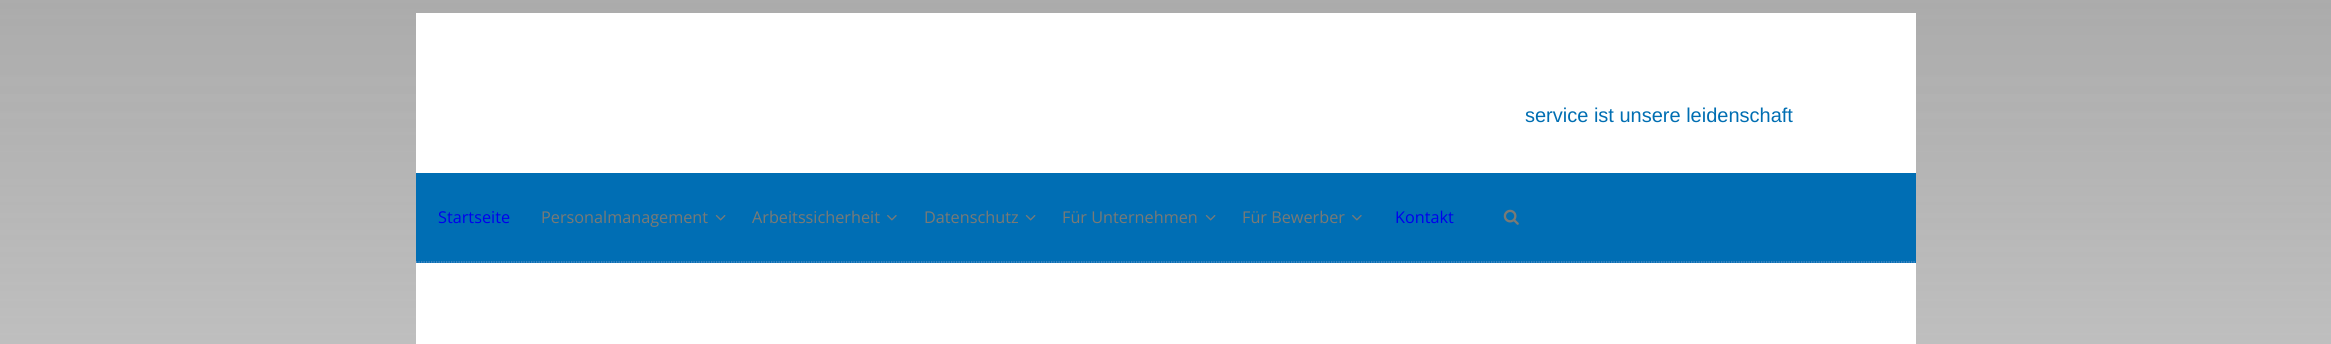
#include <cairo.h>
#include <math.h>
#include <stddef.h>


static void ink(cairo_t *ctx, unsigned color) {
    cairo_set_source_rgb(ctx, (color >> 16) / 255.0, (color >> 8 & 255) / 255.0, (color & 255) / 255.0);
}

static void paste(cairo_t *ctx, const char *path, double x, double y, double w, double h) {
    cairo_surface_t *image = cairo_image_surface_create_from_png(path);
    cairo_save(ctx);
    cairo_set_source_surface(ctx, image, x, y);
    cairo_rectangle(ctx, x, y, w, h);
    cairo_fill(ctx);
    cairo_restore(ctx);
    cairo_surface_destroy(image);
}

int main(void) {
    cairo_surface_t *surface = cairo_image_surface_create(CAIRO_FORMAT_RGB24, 2331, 344);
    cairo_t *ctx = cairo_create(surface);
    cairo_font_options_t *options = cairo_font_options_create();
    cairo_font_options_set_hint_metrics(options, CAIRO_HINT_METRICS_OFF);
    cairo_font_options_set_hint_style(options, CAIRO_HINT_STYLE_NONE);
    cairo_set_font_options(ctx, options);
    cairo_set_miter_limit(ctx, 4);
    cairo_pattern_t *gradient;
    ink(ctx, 0xFFFFFF);
    cairo_paint(ctx);
    gradient = cairo_pattern_create_linear(1166, 0, 1166, 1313);
    cairo_pattern_add_color_stop_rgba(gradient, 0, 0.698, 0.698, 0.698, 1);
    cairo_pattern_add_color_stop_rgba(gradient, 1, 1, 1, 1, 1);
    cairo_set_source(ctx, gradient);
    cairo_pattern_destroy(gradient);
    cairo_rectangle(ctx, 0, 0, 2331, 344);
    cairo_fill(ctx);
    gradient = cairo_pattern_create_linear(1166, 0, 1166, 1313);
    cairo_pattern_add_color_stop_rgba(gradient, 0, 0.549, 0.549, 0.549, 0.17);
    cairo_pattern_add_color_stop_rgba(gradient, 1, 1, 1, 1, 0.48);
    cairo_set_source(ctx, gradient);
    cairo_pattern_destroy(gradient);
    cairo_rectangle(ctx, 0, 0, 2331, 344);
    cairo_fill(ctx);
    ink(ctx, 0xFFFFFF);
    cairo_rectangle(ctx, 416, 13, 1500, 331);
    cairo_fill(ctx);
    cairo_select_font_face(ctx, "Liberation Sans", CAIRO_FONT_SLANT_NORMAL, CAIRO_FONT_WEIGHT_NORMAL);
    cairo_set_font_size(ctx, 20);
    ink(ctx, 0x006EB2);
    cairo_move_to(ctx, 1525, 122);
    cairo_show_text(ctx, "service ist unsere leidenschaft");
    ink(ctx, 0x006EB4);
    cairo_rectangle(ctx, 416, 173, 1500, 90);
    cairo_fill(ctx);
    cairo_new_path(ctx);
    cairo_move_to(ctx, 416, 262);
    cairo_line_to(ctx, 1916, 262);
    ink(ctx, 0x6894CA);
    cairo_set_line_width(ctx, 1.2);
    cairo_set_dash(ctx, (double[]){1.25, 1.25}, 2, 0);
    cairo_stroke(ctx);
    cairo_select_font_face(ctx, "Open Sans", CAIRO_FONT_SLANT_NORMAL, CAIRO_FONT_WEIGHT_NORMAL);
    cairo_set_font_size(ctx, 16.25);
    ink(ctx, 0x0000EE);
    cairo_move_to(ctx, 438, 223);
    cairo_show_text(ctx, "Startseite");
    ink(ctx, 0x7A7A75);
    cairo_move_to(ctx, 541, 223);
    cairo_show_text(ctx, "Personalmanagement");
    paste(ctx, "media/1.png", 715, 215, 11, 6);
    cairo_move_to(ctx, 752, 223);
    cairo_show_text(ctx, "Arbeitssicherheit");
    paste(ctx, "media/2.png", 887, 215, 10, 6);
    cairo_move_to(ctx, 924, 223);
    cairo_show_text(ctx, "Datenschutz");
    paste(ctx, "media/1.png", 1025, 215, 11, 6);
    cairo_move_to(ctx, 1062, 223);
    cairo_show_text(ctx, "Für Unternehmen");
    paste(ctx, "media/1.png", 1205, 215, 11, 6);
    cairo_move_to(ctx, 1242, 223);
    cairo_show_text(ctx, "Für Bewerber");
    paste(ctx, "media/2.png", 1352, 215, 10, 6);
    ink(ctx, 0x0000EE);
    cairo_move_to(ctx, 1395, 223);
    cairo_show_text(ctx, "Kontakt");
    paste(ctx, "media/3.png", 1503, 209, 16, 16);
    cairo_surface_write_to_png(surface, "image.png");
    cairo_font_options_destroy(options);
    cairo_destroy(ctx);
    cairo_surface_destroy(surface);
    return 0;
}
